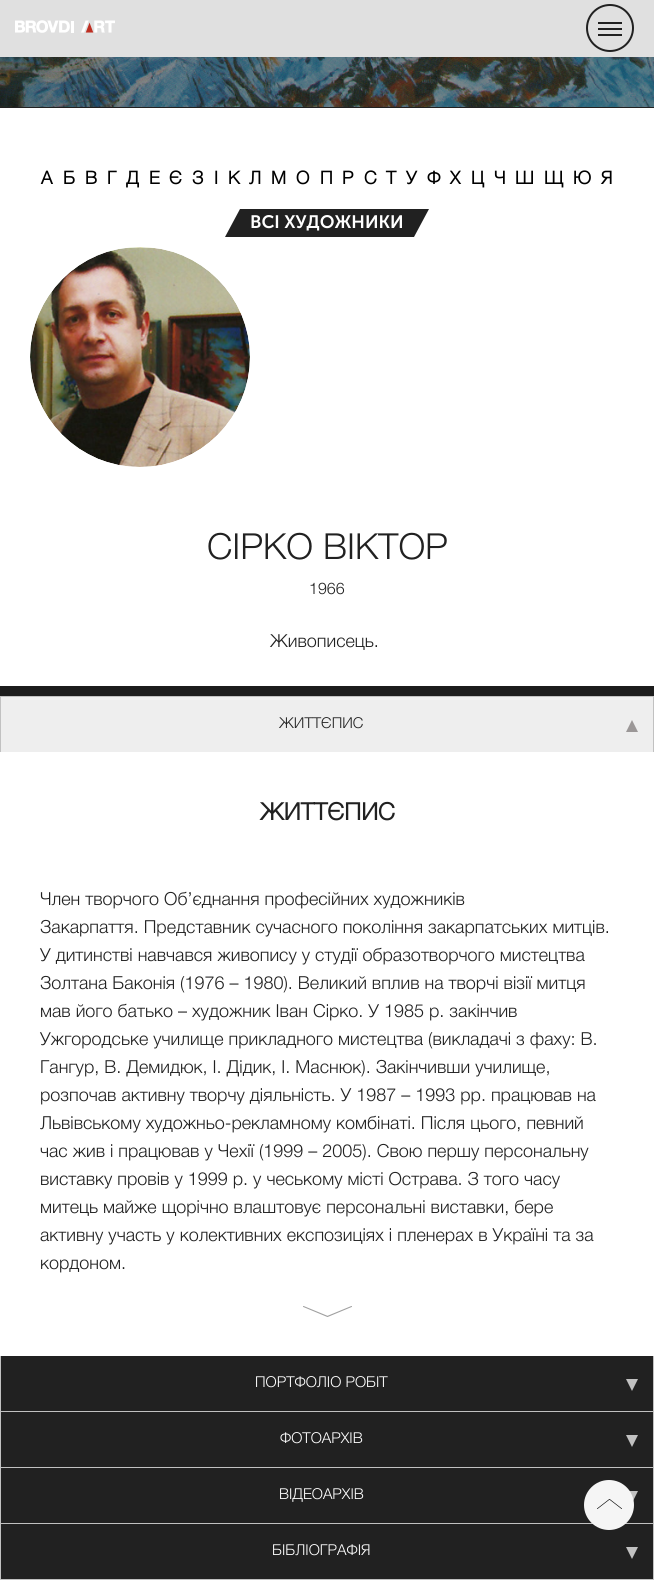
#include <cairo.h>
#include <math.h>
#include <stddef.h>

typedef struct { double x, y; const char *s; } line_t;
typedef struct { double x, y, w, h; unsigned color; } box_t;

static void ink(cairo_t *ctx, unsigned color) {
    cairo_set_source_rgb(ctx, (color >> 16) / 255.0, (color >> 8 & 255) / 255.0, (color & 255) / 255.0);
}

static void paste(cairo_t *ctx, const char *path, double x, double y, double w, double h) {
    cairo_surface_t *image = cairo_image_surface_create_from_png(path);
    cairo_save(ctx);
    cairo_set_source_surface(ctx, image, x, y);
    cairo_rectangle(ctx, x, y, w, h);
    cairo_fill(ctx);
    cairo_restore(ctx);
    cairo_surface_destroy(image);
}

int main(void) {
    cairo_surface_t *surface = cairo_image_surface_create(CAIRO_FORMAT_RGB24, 654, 1580);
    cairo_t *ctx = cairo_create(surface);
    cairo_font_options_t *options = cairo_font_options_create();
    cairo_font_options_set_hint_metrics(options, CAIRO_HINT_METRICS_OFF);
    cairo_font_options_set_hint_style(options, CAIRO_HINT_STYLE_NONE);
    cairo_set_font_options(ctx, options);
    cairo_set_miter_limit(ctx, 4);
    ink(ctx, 0x212121);
    cairo_paint(ctx);
    ink(ctx, 0xE0E0E0);
    cairo_rectangle(ctx, 0, 0, 654, 57);
    cairo_fill(ctx);
    paste(ctx, "media/1.png", 15, 20, 100, 13);
    cairo_arc(ctx, 610, 28, 23, 0, 2 * M_PI);
    ink(ctx, 0x212121);
    cairo_stroke(ctx);
    {
        static const box_t items[] = {
            {598, 28, 24, 2, 0x212121},
            {598, 22, 24, 2, 0x212121},
            {598, 34, 24, 2, 0x212121},
        };
        for (size_t i = 0; i < sizeof items / sizeof *items; i++) {
            ink(ctx, items[i].color);
            cairo_rectangle(ctx, items[i].x, items[i].y, items[i].w, items[i].h);
            cairo_fill(ctx);
        }
    }
    paste(ctx, "media/2.png", 0, 57, 654, 50);
    ink(ctx, 0xFFFFFF);
    cairo_rectangle(ctx, 0, 108, 654, 1248);
    cairo_fill(ctx);
    cairo_select_font_face(ctx, "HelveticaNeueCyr", CAIRO_FONT_SLANT_NORMAL, CAIRO_FONT_WEIGHT_BOLD);
    cairo_set_font_size(ctx, 18);
    ink(ctx, 0x000000);
    {
        static const line_t items[] = {
            {41, 184, "А"},
            {63, 184, "Б"},
            {85, 184, "В"},
            {107, 184, "Г"},
            {126, 184, "Д"},
            {149, 184, "Е"},
            {169, 184, "Є"},
            {192, 184, "З"},
            {214, 184, "І"},
            {228, 184, "К"},
            {249, 184, "Л"},
            {271, 184, "М"},
            {296, 184, "О"},
            {320, 184, "П"},
            {342, 184, "Р"},
            {364, 184, "С"},
            {386, 184, "Т"},
            {406, 184, "У"},
            {427, 184, "Ф"},
            {450, 184, "Х"},
            {471, 184, "Ц"},
            {494, 184, "Ч"},
            {515, 184, "Ш"},
            {544, 184, "Щ"},
            {573, 184, "Ю"},
            {601, 184, "Я"},
        };
        for (size_t i = 0; i < sizeof items / sizeof *items; i++) {
            cairo_move_to(ctx, items[i].x, items[i].y);
            cairo_show_text(ctx, items[i].s);
        }
    }
    ink(ctx, 0x212121);
    cairo_rectangle(ctx, 240, 209, 174, 28);
    cairo_fill(ctx);
    cairo_new_path(ctx);
    cairo_move_to(ctx, 240, 237);
    cairo_line_to(ctx, 225, 237);
    cairo_line_to(ctx, 240, 209);
    cairo_close_path(ctx);
    cairo_fill(ctx);
    cairo_select_font_face(ctx, "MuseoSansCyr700", CAIRO_FONT_SLANT_NORMAL, CAIRO_FONT_WEIGHT_NORMAL);
    ink(ctx, 0xFFFFFF);
    cairo_move_to(ctx, 250, 228);
    cairo_show_text(ctx, "ВСІ ХУДОЖНИКИ");
    ink(ctx, 0x212121);
    cairo_new_path(ctx);
    cairo_move_to(ctx, 414, 209);
    cairo_line_to(ctx, 429, 209);
    cairo_line_to(ctx, 414, 237);
    cairo_close_path(ctx);
    cairo_fill(ctx);
    paste(ctx, "media/3.png", 30, 247, 220, 220);
    cairo_select_font_face(ctx, "HelveticaNeueCyr Light", CAIRO_FONT_SLANT_NORMAL, CAIRO_FONT_WEIGHT_NORMAL);
    cairo_set_font_size(ctx, 36);
    cairo_move_to(ctx, 207, 559);
    cairo_show_text(ctx, "СІРКО ВІКТОР");
    cairo_set_font_size(ctx, 16);
    cairo_move_to(ctx, 309, 594);
    cairo_show_text(ctx, "1966");
    cairo_set_font_size(ctx, 18);
    cairo_move_to(ctx, 270, 647);
    cairo_show_text(ctx, "Живописець.");
    {
        static const box_t items[] = {
            {0, 686, 654, 10, 0x1C1C1C},
            {1, 697, 652, 55, 0xEEEEEE},
            {0, 696, 654, 1, 0xC1C1C1},
            {653, 696, 1, 56, 0xC1C1C1},
            {0, 696, 1, 56, 0xC1C1C1},
        };
        for (size_t i = 0; i < sizeof items / sizeof *items; i++) {
            ink(ctx, items[i].color);
            cairo_rectangle(ctx, items[i].x, items[i].y, items[i].w, items[i].h);
            cairo_fill(ctx);
        }
    }
    cairo_set_font_size(ctx, 15);
    ink(ctx, 0x212121);
    cairo_move_to(ctx, 279, 728);
    cairo_show_text(ctx, "ЖИТТЄПИС");
    ink(ctx, 0x9B9797);
    cairo_new_path(ctx);
    cairo_move_to(ctx, 638, 732);
    cairo_line_to(ctx, 626, 732);
    cairo_line_to(ctx, 632, 720);
    cairo_close_path(ctx);
    cairo_fill(ctx);
    cairo_select_font_face(ctx, "HelveticaNeueCyr", CAIRO_FONT_SLANT_NORMAL, CAIRO_FONT_WEIGHT_BOLD);
    cairo_set_font_size(ctx, 24);
    ink(ctx, 0x212121);
    cairo_move_to(ctx, 260, 820);
    cairo_show_text(ctx, "ЖИТТЄПИС");
    cairo_select_font_face(ctx, "HelveticaNeueCyr Light", CAIRO_FONT_SLANT_NORMAL, CAIRO_FONT_WEIGHT_NORMAL);
    cairo_set_font_size(ctx, 18);
    {
        static const line_t items[] = {
            {40, 905, "Член творчого Об’єднання професійних художників"},
            {40, 933, "Закарпаття. Представник сучасного покоління закарпатських митців."},
            {40, 961, "У дитинстві навчався живопису у студії образотворчого мистецтва"},
            {40, 989, "Золтана Баконія (1976 – 1980). Великий вплив на творчі візії митця"},
            {40, 1017, "мав його батько – художник Іван Сірко. У 1985 р. закінчив"},
            {40, 1045, "Ужгородське училище прикладного мистецтва (викладачі з фаху: В."},
            {40, 1073, "Гангур, В. Демидюк, І. Дідик, І. Маснюк). Закінчивши училище,"},
            {40, 1101, "розпочав активну творчу діяльність. У 1987 – 1993 рр. працював на"},
            {40, 1129, "Львівському художньо-рекламному комбінаті. Після цього, певний"},
            {40, 1157, "час жив і працював у Чехії (1999 – 2005). Свою першу персональну"},
            {40, 1185, "виставку провів у 1999 р. у чеському місті Острава. З того часу"},
            {40, 1213, "митець майже щорічно влаштовує персональні виставки, бере"},
            {40, 1241, "активну участь у колективних експозиціях і пленерах в Україні та за"},
            {40, 1269, "кордоном."},
        };
        for (size_t i = 0; i < sizeof items / sizeof *items; i++) {
            cairo_move_to(ctx, items[i].x, items[i].y);
            cairo_show_text(ctx, items[i].s);
        }
    }
    paste(ctx, "media/4.png", 303, 1306, 49, 11);
    {
        static const box_t items[] = {
            {653, 1356, 1, 224, 0xC1C1C1},
            {0, 1411, 654, 1, 0xC1C1C1},
            {0, 1356, 1, 56, 0xC1C1C1},
        };
        for (size_t i = 0; i < sizeof items / sizeof *items; i++) {
            ink(ctx, items[i].color);
            cairo_rectangle(ctx, items[i].x, items[i].y, items[i].w, items[i].h);
            cairo_fill(ctx);
        }
    }
    cairo_set_font_size(ctx, 15);
    ink(ctx, 0xFFFFFF);
    cairo_move_to(ctx, 255, 1387);
    cairo_show_text(ctx, "ПОРТФОЛІО РОБІТ");
    ink(ctx, 0xC1C1C1);
    cairo_new_path(ctx);
    cairo_move_to(ctx, 626, 1379);
    cairo_line_to(ctx, 638, 1379);
    cairo_line_to(ctx, 632, 1391);
    cairo_close_path(ctx);
    cairo_fill(ctx);
    cairo_rectangle(ctx, 0, 1467, 654, 1);
    cairo_fill(ctx);
    cairo_rectangle(ctx, 0, 1412, 1, 56);
    cairo_fill(ctx);
    ink(ctx, 0xFFFFFF);
    cairo_move_to(ctx, 280, 1443);
    cairo_show_text(ctx, "ФОТОАРХІВ");
    ink(ctx, 0xC1C1C1);
    cairo_new_path(ctx);
    cairo_move_to(ctx, 626, 1435);
    cairo_line_to(ctx, 638, 1435);
    cairo_line_to(ctx, 632, 1447);
    cairo_close_path(ctx);
    cairo_fill(ctx);
    cairo_rectangle(ctx, 0, 1523, 654, 1);
    cairo_fill(ctx);
    cairo_rectangle(ctx, 0, 1468, 1, 56);
    cairo_fill(ctx);
    ink(ctx, 0xFFFFFF);
    cairo_move_to(ctx, 279, 1499);
    cairo_show_text(ctx, "ВІДЕОАРХІВ");
    ink(ctx, 0xC1C1C1);
    cairo_new_path(ctx);
    cairo_move_to(ctx, 626, 1491);
    cairo_line_to(ctx, 638, 1491);
    cairo_line_to(ctx, 632, 1503);
    cairo_close_path(ctx);
    cairo_fill(ctx);
    cairo_rectangle(ctx, 0, 1579, 654, 1);
    cairo_fill(ctx);
    cairo_rectangle(ctx, 0, 1524, 1, 56);
    cairo_fill(ctx);
    ink(ctx, 0xFFFFFF);
    cairo_move_to(ctx, 272, 1555);
    cairo_show_text(ctx, "БІБЛІОГРАФІЯ");
    ink(ctx, 0xC1C1C1);
    cairo_new_path(ctx);
    cairo_move_to(ctx, 626, 1547);
    cairo_line_to(ctx, 638, 1547);
    cairo_line_to(ctx, 632, 1559);
    cairo_close_path(ctx);
    cairo_fill(ctx);
    ink(ctx, 0xF5F5F5);
    cairo_arc(ctx, 609, 1505, 25, 0, 2 * M_PI);
    cairo_fill(ctx);
    paste(ctx, "media/5.png", 597, 1499, 25, 10);
    cairo_surface_write_to_png(surface, "image.png");
    cairo_font_options_destroy(options);
    cairo_destroy(ctx);
    cairo_surface_destroy(surface);
    return 0;
}
